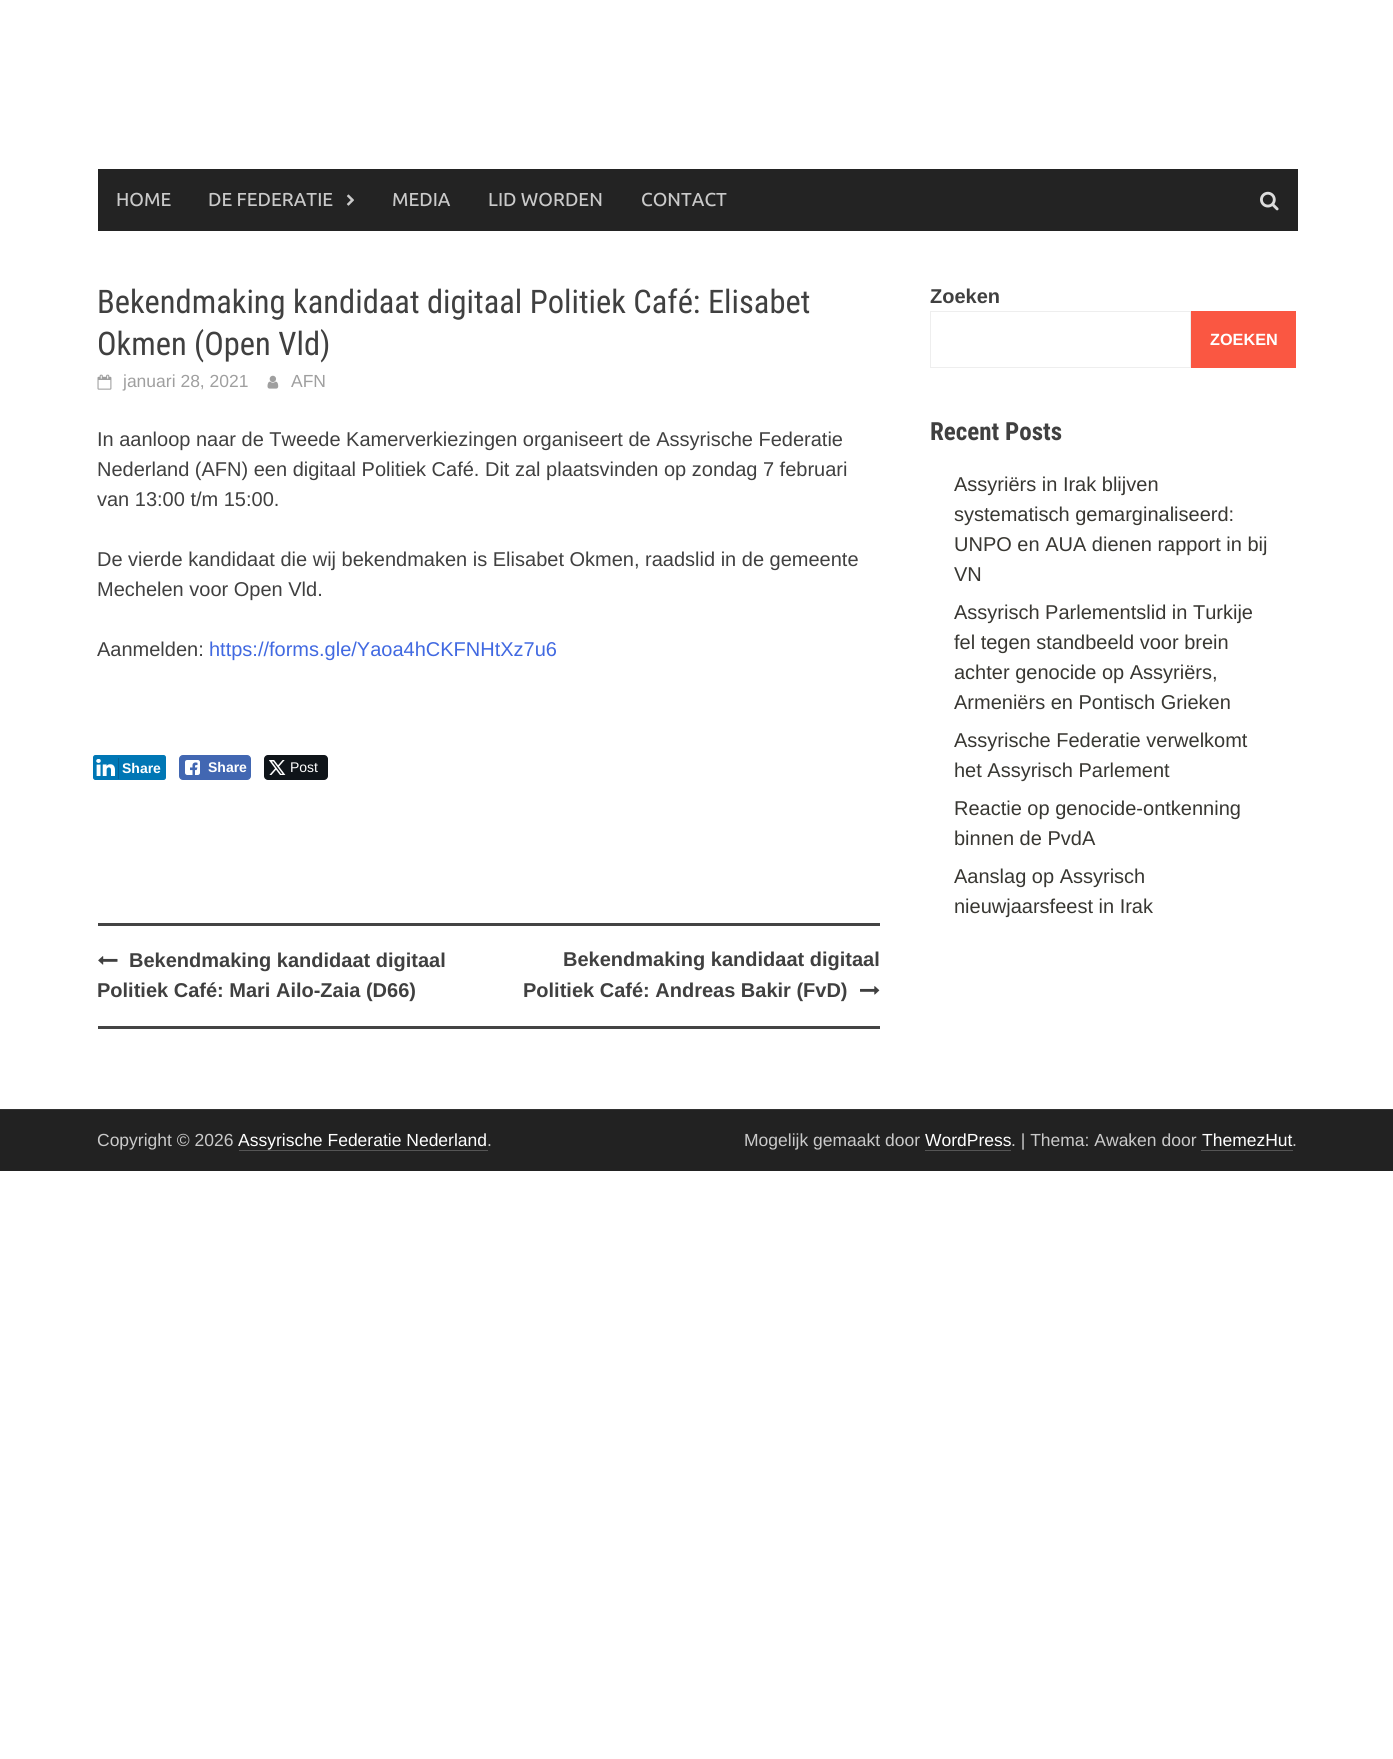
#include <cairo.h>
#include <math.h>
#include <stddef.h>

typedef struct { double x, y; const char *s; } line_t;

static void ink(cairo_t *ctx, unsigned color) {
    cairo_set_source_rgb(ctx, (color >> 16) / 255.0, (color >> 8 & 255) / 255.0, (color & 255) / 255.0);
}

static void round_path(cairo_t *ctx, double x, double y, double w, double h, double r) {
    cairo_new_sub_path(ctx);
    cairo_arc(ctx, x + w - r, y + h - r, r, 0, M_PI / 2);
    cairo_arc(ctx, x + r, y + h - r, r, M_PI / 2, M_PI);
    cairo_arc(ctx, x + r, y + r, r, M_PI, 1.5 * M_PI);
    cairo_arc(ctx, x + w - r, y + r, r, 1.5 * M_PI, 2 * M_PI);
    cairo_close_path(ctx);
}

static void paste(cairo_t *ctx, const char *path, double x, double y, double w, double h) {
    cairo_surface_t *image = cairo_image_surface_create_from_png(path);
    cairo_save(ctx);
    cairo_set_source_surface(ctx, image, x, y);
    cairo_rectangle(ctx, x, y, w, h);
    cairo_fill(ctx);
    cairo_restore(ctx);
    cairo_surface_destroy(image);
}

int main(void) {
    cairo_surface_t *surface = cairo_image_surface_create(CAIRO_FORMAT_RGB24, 1393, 1759);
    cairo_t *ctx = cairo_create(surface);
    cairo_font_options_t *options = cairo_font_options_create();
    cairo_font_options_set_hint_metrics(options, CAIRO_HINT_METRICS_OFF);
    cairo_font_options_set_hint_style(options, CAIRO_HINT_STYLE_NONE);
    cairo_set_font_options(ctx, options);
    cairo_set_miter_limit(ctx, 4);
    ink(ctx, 0xFFFFFF);
    cairo_paint(ctx);
    ink(ctx, 0x232323);
    cairo_rectangle(ctx, 98, 169, 1200, 62);
    cairo_fill(ctx);
    cairo_select_font_face(ctx, "Ubuntu Medium", CAIRO_FONT_SLANT_NORMAL, CAIRO_FONT_WEIGHT_NORMAL);
    cairo_set_font_size(ctx, 18.75);
    ink(ctx, 0xCACACA);
    cairo_move_to(ctx, 116, 206);
    cairo_show_text(ctx, "HOME");
    cairo_move_to(ctx, 208, 206);
    cairo_show_text(ctx, "DE FEDERATIE");
    paste(ctx, "media/1.png", 346, 194, 8, 12);
    {
        static const line_t items[] = {
            {392, 206, "MEDIA"},
            {488, 206, "LID WORDEN"},
            {641, 206, "CONTACT"},
        };
        for (size_t i = 0; i < sizeof items / sizeof *items; i++) {
            cairo_move_to(ctx, items[i].x, items[i].y);
            cairo_show_text(ctx, items[i].s);
        }
    }
    paste(ctx, "media/2.png", 1260, 191, 19, 20);
    cairo_select_font_face(ctx, "Roboto Condensed", CAIRO_FONT_SLANT_NORMAL, CAIRO_FONT_WEIGHT_NORMAL);
    cairo_set_font_size(ctx, 32.5);
    ink(ctx, 0x404040);
    cairo_move_to(ctx, 97, 313);
    cairo_show_text(ctx, "Bekendmaking kandidaat digitaal Politiek Café: Elisabet");
    cairo_move_to(ctx, 97, 355);
    cairo_show_text(ctx, "Okmen (Open Vld)");
    paste(ctx, "media/3.png", 97, 374, 15, 16);
    cairo_select_font_face(ctx, "Liberation Sans", CAIRO_FONT_SLANT_NORMAL, CAIRO_FONT_WEIGHT_NORMAL);
    cairo_set_font_size(ctx, 17.5);
    ink(ctx, 0x9F9F9F);
    cairo_move_to(ctx, 123, 387);
    cairo_show_text(ctx, "januari 28, 2021");
    paste(ctx, "media/4.png", 267, 375, 12, 14);
    cairo_move_to(ctx, 291, 387);
    cairo_show_text(ctx, "AFN");
    cairo_set_font_size(ctx, 20);
    ink(ctx, 0x404040);
    {
        static const line_t items[] = {
            {97, 446, "In aanloop naar de Tweede Kamerverkiezingen organiseert de Assyrische Federatie"},
            {97, 476, "Nederland (AFN) een digitaal Politiek Café. Dit zal plaatsvinden op zondag 7 februari"},
            {97, 506, "van 13:00 t/m 15:00."},
            {97, 566, "De vierde kandidaat die wij bekendmaken is Elisabet Okmen, raadslid in de gemeente"},
            {97, 596, "Mechelen voor Open Vld."},
            {97, 656, "Aanmelden:"},
        };
        for (size_t i = 0; i < sizeof items / sizeof *items; i++) {
            cairo_move_to(ctx, items[i].x, items[i].y);
            cairo_show_text(ctx, items[i].s);
        }
    }
    ink(ctx, 0x4169E1);
    cairo_move_to(ctx, 209, 656);
    cairo_show_text(ctx, "https://forms.gle/Yaoa4hCKFNHtXz7u6");
    ink(ctx, 0x0077B5);
    round_path(ctx, 93.5, 755.5, 72, 24, 2);
    cairo_fill_preserve(ctx);
    cairo_set_line_width(ctx, 1);
    cairo_stroke(ctx);
    ink(ctx, 0x066094);
    cairo_rectangle(ctx, 118, 758, 1, 21);
    cairo_fill(ctx);
    paste(ctx, "media/5.png", 96, 759, 19, 17);
    cairo_select_font_face(ctx, "Liberation Sans", CAIRO_FONT_SLANT_NORMAL, CAIRO_FONT_WEIGHT_BOLD);
    cairo_set_font_size(ctx, 14);
    ink(ctx, 0xFFFFFF);
    cairo_move_to(ctx, 122, 773);
    cairo_show_text(ctx, "Share");
    ink(ctx, 0x4267B2);
    round_path(ctx, 179.5, 755.5, 71, 24, 3.5);
    cairo_fill_preserve(ctx);
    cairo_stroke(ctx);
    paste(ctx, "media/6.png", 185, 760, 15, 15);
    ink(ctx, 0xFFFFFF);
    cairo_move_to(ctx, 208, 772);
    cairo_show_text(ctx, "Share");
    ink(ctx, 0x0F1419);
    round_path(ctx, 264, 755, 64, 25, 4);
    cairo_fill(ctx);
    paste(ctx, "media/7.png", 269, 760, 17, 15);
    cairo_select_font_face(ctx, "Liberation Sans", CAIRO_FONT_SLANT_NORMAL, CAIRO_FONT_WEIGHT_NORMAL);
    ink(ctx, 0xFFFFFF);
    cairo_move_to(ctx, 290, 772);
    cairo_show_text(ctx, "Post");
    ink(ctx, 0x444444);
    cairo_rectangle(ctx, 98, 923, 782, 3);
    cairo_fill(ctx);
    cairo_rectangle(ctx, 98, 1026, 782, 3);
    cairo_fill(ctx);
    paste(ctx, "media/8.png", 98, 956, 20, 9);
    cairo_select_font_face(ctx, "Liberation Sans", CAIRO_FONT_SLANT_NORMAL, CAIRO_FONT_WEIGHT_BOLD);
    cairo_set_font_size(ctx, 20);
    ink(ctx, 0x404040);
    {
        static const line_t items[] = {
            {129, 967, "Bekendmaking kandidaat digitaal"},
            {97, 997, "Politiek Café: Mari Ailo-Zaia (D66)"},
            {563, 966, "Bekendmaking kandidaat digitaal"},
            {523, 997, "Politiek Café: Andreas Bakir (FvD)"},
        };
        for (size_t i = 0; i < sizeof items / sizeof *items; i++) {
            cairo_move_to(ctx, items[i].x, items[i].y);
            cairo_show_text(ctx, items[i].s);
        }
    }
    paste(ctx, "media/9.png", 860, 986, 20, 9);
    cairo_move_to(ctx, 930, 303);
    cairo_show_text(ctx, "Zoeken");
    cairo_rectangle(ctx, 930.5, 311.5, 260, 56);
    ink(ctx, 0xEEEEEE);
    cairo_stroke(ctx);
    ink(ctx, 0xFA5742);
    cairo_rectangle(ctx, 1191, 311, 105, 57);
    cairo_fill(ctx);
    cairo_set_font_size(ctx, 16.25);
    ink(ctx, 0xFFFFFF);
    cairo_move_to(ctx, 1210, 345);
    cairo_show_text(ctx, "ZOEKEN");
    cairo_select_font_face(ctx, "Roboto Condensed", CAIRO_FONT_SLANT_NORMAL, CAIRO_FONT_WEIGHT_BOLD);
    cairo_set_font_size(ctx, 25);
    ink(ctx, 0x404040);
    cairo_move_to(ctx, 930, 440);
    cairo_show_text(ctx, "Recent Posts");
    cairo_select_font_face(ctx, "Liberation Sans", CAIRO_FONT_SLANT_NORMAL, CAIRO_FONT_WEIGHT_NORMAL);
    cairo_set_font_size(ctx, 20);
    ink(ctx, 0x383732);
    {
        static const line_t items[] = {
            {954, 491, "Assyriërs in Irak blijven"},
            {954, 521, "systematisch gemarginaliseerd:"},
            {954, 551, "UNPO en AUA dienen rapport in bij"},
            {954, 581, "VN"},
            {954, 619, "Assyrisch Parlementslid in Turkije"},
            {954, 649, "fel tegen standbeeld voor brein"},
            {954, 679, "achter genocide op Assyriërs,"},
            {954, 709, "Armeniërs en Pontisch Grieken"},
            {954, 747, "Assyrische Federatie verwelkomt"},
            {954, 777, "het Assyrisch Parlement"},
            {954, 815, "Reactie op genocide-ontkenning"},
            {954, 845, "binnen de PvdA"},
            {954, 883, "Aanslag op Assyrisch"},
            {954, 913, "nieuwjaarsfeest in Irak"},
        };
        for (size_t i = 0; i < sizeof items / sizeof *items; i++) {
            cairo_move_to(ctx, items[i].x, items[i].y);
            cairo_show_text(ctx, items[i].s);
        }
    }
    ink(ctx, 0x323232);
    cairo_rectangle(ctx, 0, 1109, 1393, 1);
    cairo_fill(ctx);
    ink(ctx, 0x222222);
    cairo_rectangle(ctx, 0, 1110, 1393, 61);
    cairo_fill(ctx);
    cairo_set_font_size(ctx, 17.5);
    ink(ctx, 0xCACACA);
    cairo_move_to(ctx, 97, 1146);
    cairo_show_text(ctx, "Copyright © 2026");
    ink(ctx, 0xFFFFFF);
    cairo_move_to(ctx, 238, 1146);
    cairo_show_text(ctx, "Assyrische Federatie Nederland");
    ink(ctx, 0x555555);
    cairo_rectangle(ctx, 239, 1150, 249, 1);
    cairo_fill(ctx);
    ink(ctx, 0xCACACA);
    cairo_move_to(ctx, 487, 1146);
    cairo_show_text(ctx, ".");
    cairo_move_to(ctx, 744, 1146);
    cairo_show_text(ctx, "Mogelijk gemaakt door");
    ink(ctx, 0xFFFFFF);
    cairo_move_to(ctx, 925, 1146);
    cairo_show_text(ctx, "WordPress");
    ink(ctx, 0x555555);
    cairo_rectangle(ctx, 925, 1150, 86, 1);
    cairo_fill(ctx);
    ink(ctx, 0xCACACA);
    cairo_move_to(ctx, 1011, 1146);
    cairo_show_text(ctx, ". | Thema: Awaken door");
    ink(ctx, 0xFFFFFF);
    cairo_move_to(ctx, 1202, 1146);
    cairo_show_text(ctx, "ThemezHut");
    ink(ctx, 0x555555);
    cairo_rectangle(ctx, 1201, 1150, 92, 1);
    cairo_fill(ctx);
    ink(ctx, 0xCACACA);
    cairo_move_to(ctx, 1292, 1146);
    cairo_show_text(ctx, ".");
    cairo_surface_write_to_png(surface, "image.png");
    cairo_font_options_destroy(options);
    cairo_destroy(ctx);
    cairo_surface_destroy(surface);
    return 0;
}
